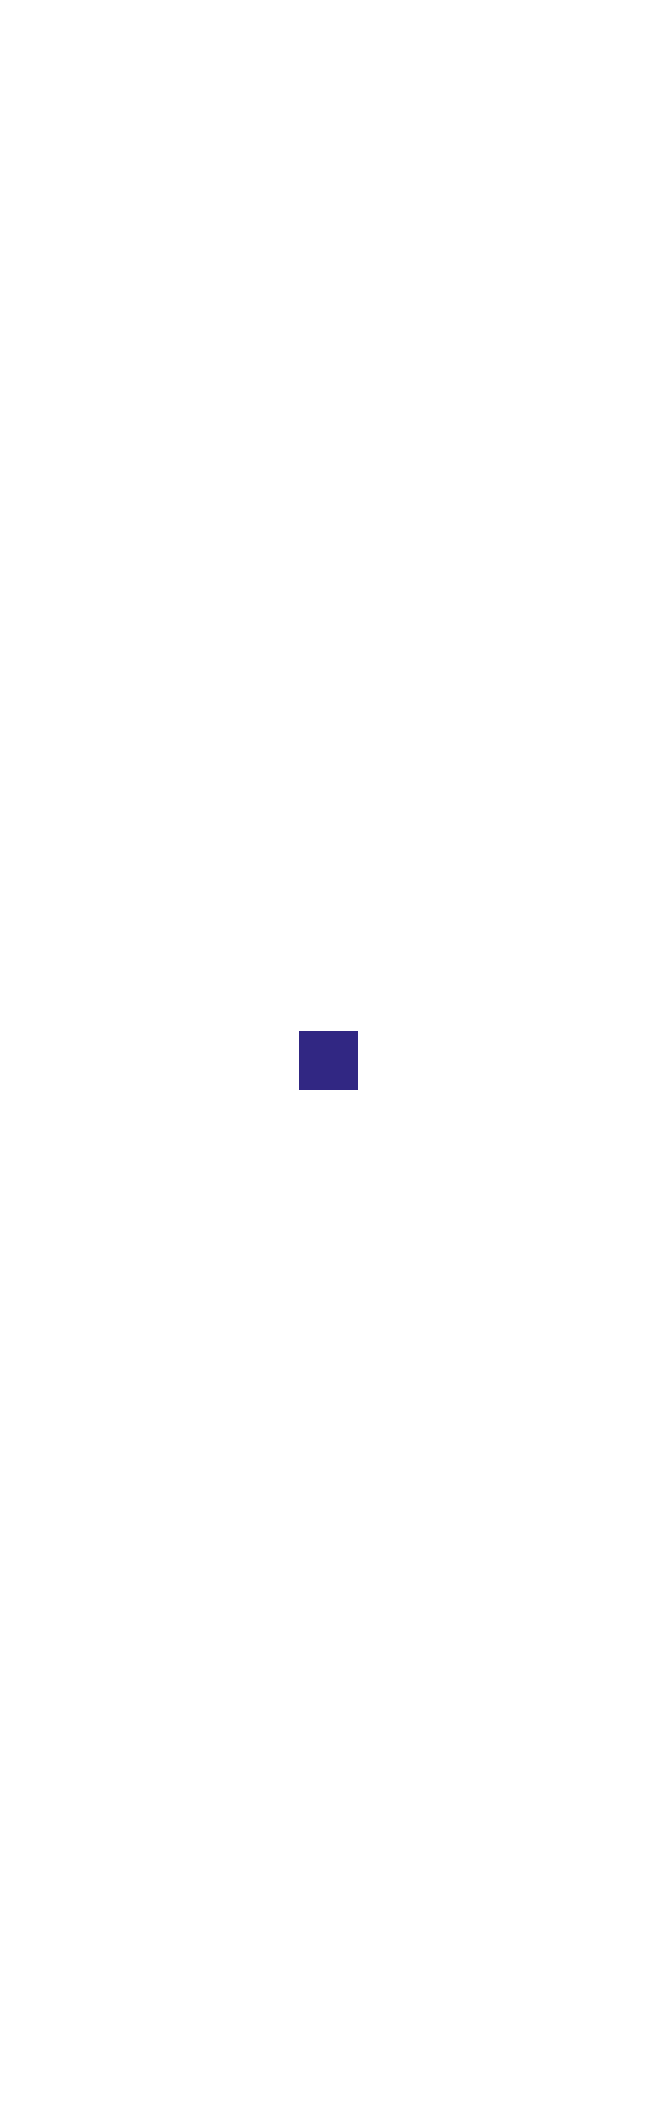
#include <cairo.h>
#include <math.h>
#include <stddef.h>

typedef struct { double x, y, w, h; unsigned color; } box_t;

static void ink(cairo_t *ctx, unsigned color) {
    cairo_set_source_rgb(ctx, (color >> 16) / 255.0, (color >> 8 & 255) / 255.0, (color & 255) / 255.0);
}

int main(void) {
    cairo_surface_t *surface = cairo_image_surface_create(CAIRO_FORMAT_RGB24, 657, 2121);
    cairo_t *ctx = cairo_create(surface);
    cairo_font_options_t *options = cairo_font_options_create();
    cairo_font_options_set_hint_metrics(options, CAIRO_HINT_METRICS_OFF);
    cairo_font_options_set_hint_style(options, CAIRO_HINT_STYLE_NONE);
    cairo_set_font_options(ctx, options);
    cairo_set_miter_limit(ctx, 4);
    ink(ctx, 0xFFFFFF);
    cairo_paint(ctx);
    {
        static const box_t items[] = {
            {299, 1031, 59, 19, 0x312783},
            {299, 1050, 59, 20, 0x312783},
            {299, 1070, 59, 20, 0x312783},
        };
        for (size_t i = 0; i < sizeof items / sizeof *items; i++) {
            ink(ctx, items[i].color);
            cairo_rectangle(ctx, items[i].x, items[i].y, items[i].w, items[i].h);
            cairo_fill(ctx);
        }
    }
    cairo_surface_write_to_png(surface, "image.png");
    cairo_font_options_destroy(options);
    cairo_destroy(ctx);
    cairo_surface_destroy(surface);
    return 0;
}
